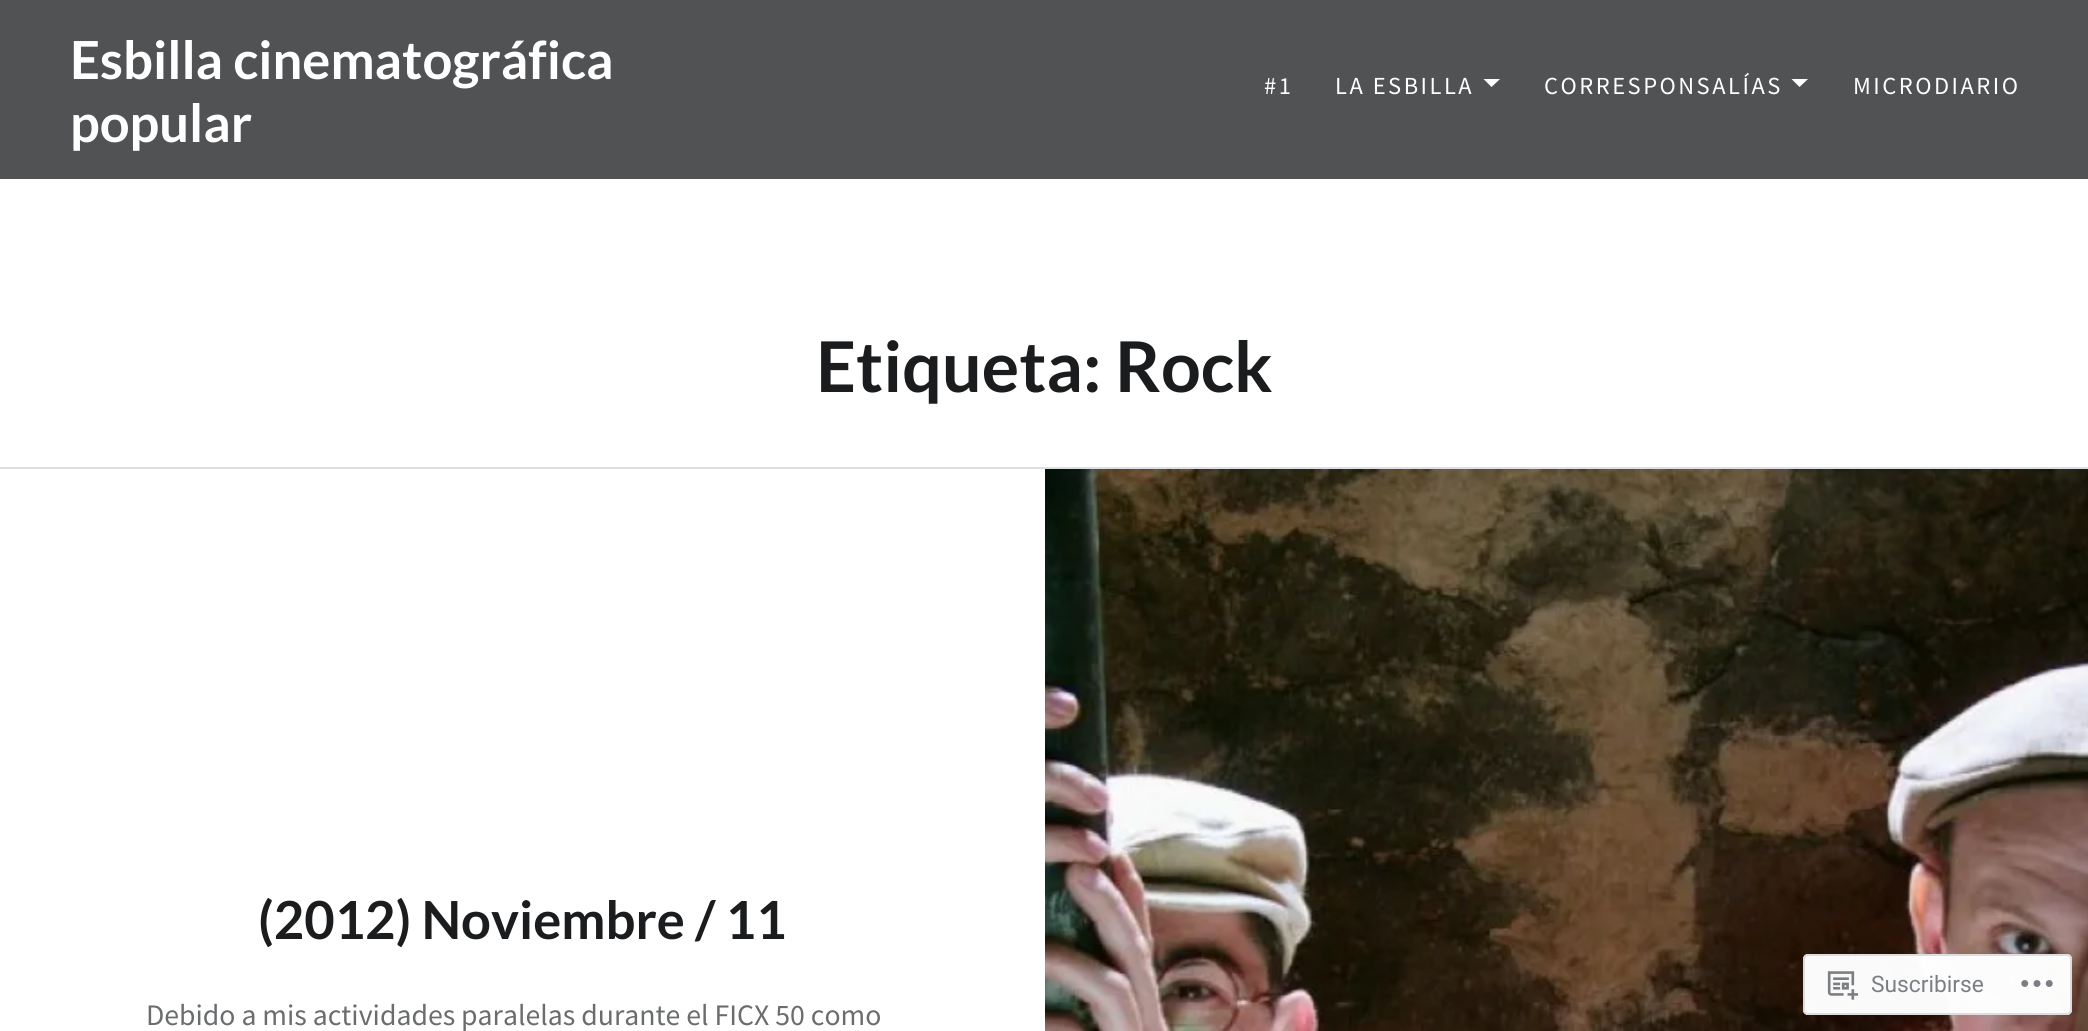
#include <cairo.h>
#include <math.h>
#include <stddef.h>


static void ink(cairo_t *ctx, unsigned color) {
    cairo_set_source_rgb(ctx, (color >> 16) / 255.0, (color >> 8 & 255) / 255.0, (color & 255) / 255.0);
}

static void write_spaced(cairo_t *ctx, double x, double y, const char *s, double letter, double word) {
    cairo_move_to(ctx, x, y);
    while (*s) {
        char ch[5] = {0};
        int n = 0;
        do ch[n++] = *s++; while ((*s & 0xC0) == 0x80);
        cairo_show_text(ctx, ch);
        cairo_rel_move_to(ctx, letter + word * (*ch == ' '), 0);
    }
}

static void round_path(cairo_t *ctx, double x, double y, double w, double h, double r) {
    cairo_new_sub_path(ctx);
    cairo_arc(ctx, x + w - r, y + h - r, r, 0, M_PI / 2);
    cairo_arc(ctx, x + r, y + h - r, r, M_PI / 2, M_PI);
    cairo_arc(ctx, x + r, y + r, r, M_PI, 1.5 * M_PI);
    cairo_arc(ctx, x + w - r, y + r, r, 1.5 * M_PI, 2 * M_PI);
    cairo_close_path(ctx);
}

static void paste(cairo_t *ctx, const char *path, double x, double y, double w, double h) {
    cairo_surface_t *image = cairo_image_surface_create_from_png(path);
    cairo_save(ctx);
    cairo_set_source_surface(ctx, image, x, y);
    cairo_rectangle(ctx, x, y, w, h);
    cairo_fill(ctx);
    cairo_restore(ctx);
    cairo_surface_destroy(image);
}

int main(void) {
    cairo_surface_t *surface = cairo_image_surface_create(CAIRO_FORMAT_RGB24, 2088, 1031);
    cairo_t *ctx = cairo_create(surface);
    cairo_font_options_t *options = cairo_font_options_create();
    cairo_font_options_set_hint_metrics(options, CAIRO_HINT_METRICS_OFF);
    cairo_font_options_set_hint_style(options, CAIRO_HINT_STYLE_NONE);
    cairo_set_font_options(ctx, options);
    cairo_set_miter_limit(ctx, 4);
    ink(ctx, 0xFFFFFF);
    cairo_paint(ctx);
    ink(ctx, 0x505254);
    cairo_rectangle(ctx, 0, 0, 2088, 179);
    cairo_fill(ctx);
    cairo_select_font_face(ctx, "Lato", CAIRO_FONT_SLANT_NORMAL, CAIRO_FONT_WEIGHT_BOLD);
    cairo_set_font_size(ctx, 52.5);
    ink(ctx, 0xFFFFFF);
    cairo_move_to(ctx, 70, 79);
    cairo_show_text(ctx, "Esbilla cinematográfica");
    cairo_move_to(ctx, 70, 142);
    cairo_show_text(ctx, "popular");
    cairo_select_font_face(ctx, "Source Sans Pro", CAIRO_FONT_SLANT_NORMAL, CAIRO_FONT_WEIGHT_NORMAL);
    cairo_set_font_size(ctx, 24.5);
    write_spaced(ctx, 1264, 94, "#1", 2.5, 0);
    write_spaced(ctx, 1335, 94, "LA ESBILLA", 2.5, 0);
    cairo_new_path(ctx);
    cairo_move_to(ctx, 1483.5, 79);
    cairo_line_to(ctx, 1500, 79);
    cairo_line_to(ctx, 1491.5, 87);
    cairo_close_path(ctx);
    cairo_fill(ctx);
    write_spaced(ctx, 1544, 94, "CORRESPONSALÍAS", 2.5, 0);
    cairo_new_path(ctx);
    cairo_move_to(ctx, 1791.5, 79);
    cairo_line_to(ctx, 1808, 79);
    cairo_line_to(ctx, 1799.5, 87);
    cairo_close_path(ctx);
    cairo_fill(ctx);
    write_spaced(ctx, 1853, 94, "MICRODIARIO", 2.5, 0);
    ink(ctx, 0xD9DFE5);
    cairo_rectangle(ctx, 0, 467, 2088, 2);
    cairo_fill(ctx);
    cairo_select_font_face(ctx, "Lato", CAIRO_FONT_SLANT_NORMAL, CAIRO_FONT_WEIGHT_BOLD);
    cairo_set_font_size(ctx, 70);
    ink(ctx, 0x1A1C1E);
    cairo_move_to(ctx, 816, 392);
    cairo_show_text(ctx, "Etiqueta: Rock");
    cairo_set_font_size(ctx, 52.5);
    cairo_move_to(ctx, 258, 939);
    cairo_show_text(ctx, "(2012) Noviembre / 11");
    cairo_select_font_face(ctx, "Source Sans Pro", CAIRO_FONT_SLANT_NORMAL, CAIRO_FONT_WEIGHT_NORMAL);
    cairo_set_font_size(ctx, 29.75);
    ink(ctx, 0x6A6C6E);
    cairo_move_to(ctx, 146, 1025);
    cairo_show_text(ctx, "Debido a mis actividades paralelas durante el FICX 50 como");
    paste(ctx, "media/1.png", 1045, 469, 1043, 562);
    cairo_set_source_rgba(ctx, 1, 1, 1, 0.98);
    round_path(ctx, 1803, 954, 269, 61, 5);
    cairo_fill(ctx);
    round_path(ctx, 1804, 955, 267, 59, 4);
    cairo_set_source_rgba(ctx, 0.863, 0.863, 0.871, 0.98);
    cairo_stroke(ctx);
    paste(ctx, "media/2.png", 1827, 971, 32, 29);
    cairo_select_font_face(ctx, "Roboto", CAIRO_FONT_SLANT_NORMAL, CAIRO_FONT_WEIGHT_NORMAL);
    cairo_set_font_size(ctx, 22.75);
    ink(ctx, 0x7B7F84);
    cairo_move_to(ctx, 1871, 992);
    cairo_show_text(ctx, "Suscribirse");
    paste(ctx, "media/3.png", 2021, 980, 32, 7);
    cairo_surface_write_to_png(surface, "image.png");
    cairo_font_options_destroy(options);
    cairo_destroy(ctx);
    cairo_surface_destroy(surface);
    return 0;
}
